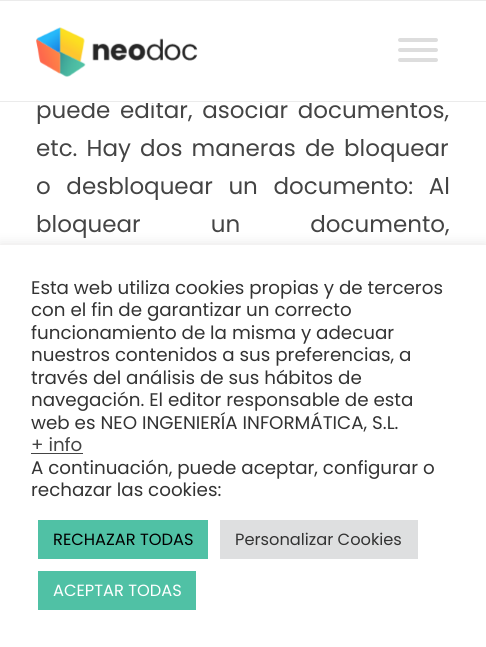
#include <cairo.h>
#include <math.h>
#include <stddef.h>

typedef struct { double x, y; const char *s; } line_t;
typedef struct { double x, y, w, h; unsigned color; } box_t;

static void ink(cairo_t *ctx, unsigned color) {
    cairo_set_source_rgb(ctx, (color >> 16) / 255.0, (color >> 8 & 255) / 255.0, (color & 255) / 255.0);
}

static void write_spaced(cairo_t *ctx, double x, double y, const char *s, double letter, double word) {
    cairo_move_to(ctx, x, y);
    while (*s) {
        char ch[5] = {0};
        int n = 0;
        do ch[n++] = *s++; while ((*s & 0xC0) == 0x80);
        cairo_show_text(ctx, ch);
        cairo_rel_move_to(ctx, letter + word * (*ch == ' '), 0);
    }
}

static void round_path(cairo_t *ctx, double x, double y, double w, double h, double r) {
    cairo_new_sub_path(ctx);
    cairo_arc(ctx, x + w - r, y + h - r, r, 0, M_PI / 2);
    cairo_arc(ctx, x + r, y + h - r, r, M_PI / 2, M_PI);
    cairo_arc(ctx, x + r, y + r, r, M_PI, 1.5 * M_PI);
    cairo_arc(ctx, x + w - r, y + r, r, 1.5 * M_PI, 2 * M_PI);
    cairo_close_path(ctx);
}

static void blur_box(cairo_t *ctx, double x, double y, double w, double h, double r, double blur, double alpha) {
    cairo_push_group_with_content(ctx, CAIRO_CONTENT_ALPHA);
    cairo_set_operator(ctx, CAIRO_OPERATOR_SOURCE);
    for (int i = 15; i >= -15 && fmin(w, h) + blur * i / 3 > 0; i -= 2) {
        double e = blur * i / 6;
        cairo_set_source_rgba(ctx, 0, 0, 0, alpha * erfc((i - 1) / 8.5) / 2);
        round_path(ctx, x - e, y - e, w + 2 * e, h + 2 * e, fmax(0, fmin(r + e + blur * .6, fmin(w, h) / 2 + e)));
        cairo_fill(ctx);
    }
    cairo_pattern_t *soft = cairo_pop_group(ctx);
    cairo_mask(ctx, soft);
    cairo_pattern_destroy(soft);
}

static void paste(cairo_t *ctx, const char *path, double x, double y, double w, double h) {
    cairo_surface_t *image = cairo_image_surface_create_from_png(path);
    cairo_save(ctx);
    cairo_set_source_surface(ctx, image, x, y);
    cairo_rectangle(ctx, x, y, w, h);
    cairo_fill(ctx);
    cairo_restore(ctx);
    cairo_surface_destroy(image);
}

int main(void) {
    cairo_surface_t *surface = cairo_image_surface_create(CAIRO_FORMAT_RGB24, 486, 647);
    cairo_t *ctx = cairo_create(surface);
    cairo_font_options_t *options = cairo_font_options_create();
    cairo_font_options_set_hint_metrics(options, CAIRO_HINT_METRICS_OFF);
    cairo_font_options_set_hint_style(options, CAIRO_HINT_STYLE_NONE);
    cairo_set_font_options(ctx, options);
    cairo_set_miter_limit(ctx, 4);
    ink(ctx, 0xFFFFFF);
    cairo_paint(ctx);
    cairo_select_font_face(ctx, "Poppins", CAIRO_FONT_SLANT_NORMAL, CAIRO_FONT_WEIGHT_NORMAL);
    cairo_set_font_size(ctx, 23);
    ink(ctx, 0x444444);
    write_spaced(ctx, 36, 118, "puede editar, asociar documentos,", 0, 3.5);
    {
        static const box_t items[] = {
            {92, 100, 323, 3, 0xFFFFFF},
            {0, 0, 486, 1, 0xEBEBEB},
            {0, 101, 486, 1, 0xEBEBEB},
        };
        for (size_t i = 0; i < sizeof items / sizeof *items; i++) {
            ink(ctx, items[i].color);
            cairo_rectangle(ctx, items[i].x, items[i].y, items[i].w, items[i].h);
            cairo_fill(ctx);
        }
    }
    paste(ctx, "media/1.png", 36, 27, 162, 50);
    ink(ctx, 0xDDDDDD);
    round_path(ctx, 398, 38, 40, 4, 2);
    cairo_fill(ctx);
    round_path(ctx, 398, 48, 40, 4, 2);
    cairo_fill(ctx);
    round_path(ctx, 398, 58, 40, 4, 2);
    cairo_fill(ctx);
    ink(ctx, 0x444444);
    write_spaced(ctx, 36, 156, "etc. Hay dos maneras de bloquear", 0, 3);
    write_spaced(ctx, 36, 194, "o desbloquear un documento: Al", 0, 9.5);
    write_spaced(ctx, 36, 232, "bloquear un documento,", 0, 64);
    ink(ctx, 0xACABAB);
    blur_box(ctx, 0, 244, 486, 402, 0, 6, 0.3);
    ink(ctx, 0xFFFFFF);
    cairo_rectangle(ctx, 0, 245, 486, 402);
    cairo_fill(ctx);
    cairo_set_font_size(ctx, 18.3);
    ink(ctx, 0x333333);
    {
        static const line_t items[] = {
            {31, 294, "Esta web utiliza cookies propias y de terceros"},
            {31, 316, "con el fin de garantizar un correcto"},
            {31, 339, "funcionamiento de la misma y adecuar"},
            {31, 361, "nuestros contenidos a sus preferencias, a"},
            {31, 384, "través del análisis de sus hábitos de"},
            {31, 406, "navegación. El editor responsable de esta"},
            {31, 429, "web es NEO INGENIERÍA INFORMÁTICA, S.L."},
        };
        for (size_t i = 0; i < sizeof items / sizeof *items; i++) {
            cairo_move_to(ctx, items[i].x, items[i].y);
            cairo_show_text(ctx, items[i].s);
        }
    }
    ink(ctx, 0x444444);
    cairo_move_to(ctx, 31, 451);
    cairo_show_text(ctx, "+ info");
    cairo_rectangle(ctx, 31, 453, 52, 1);
    cairo_fill(ctx);
    ink(ctx, 0x333333);
    cairo_move_to(ctx, 31, 474);
    cairo_show_text(ctx, "A continuación, puede aceptar, configurar o");
    cairo_move_to(ctx, 31, 496);
    cairo_show_text(ctx, "rechazar las cookies:");
    ink(ctx, 0x50C1A5);
    cairo_rectangle(ctx, 38, 520, 170, 39);
    cairo_fill(ctx);
    cairo_set_font_size(ctx, 16.25);
    ink(ctx, 0x000000);
    cairo_move_to(ctx, 53, 545);
    cairo_show_text(ctx, "RECHAZAR TODAS");
    ink(ctx, 0xDEDFE0);
    cairo_rectangle(ctx, 220, 520, 198, 39);
    cairo_fill(ctx);
    ink(ctx, 0x333333);
    cairo_move_to(ctx, 235, 545);
    cairo_show_text(ctx, "Personalizar Cookies");
    ink(ctx, 0x50C1A5);
    cairo_rectangle(ctx, 38, 571, 158, 39);
    cairo_fill(ctx);
    ink(ctx, 0xFFFFFF);
    cairo_move_to(ctx, 53, 596);
    cairo_show_text(ctx, "ACEPTAR TODAS");
    cairo_surface_write_to_png(surface, "image.png");
    cairo_font_options_destroy(options);
    cairo_destroy(ctx);
    cairo_surface_destroy(surface);
    return 0;
}
